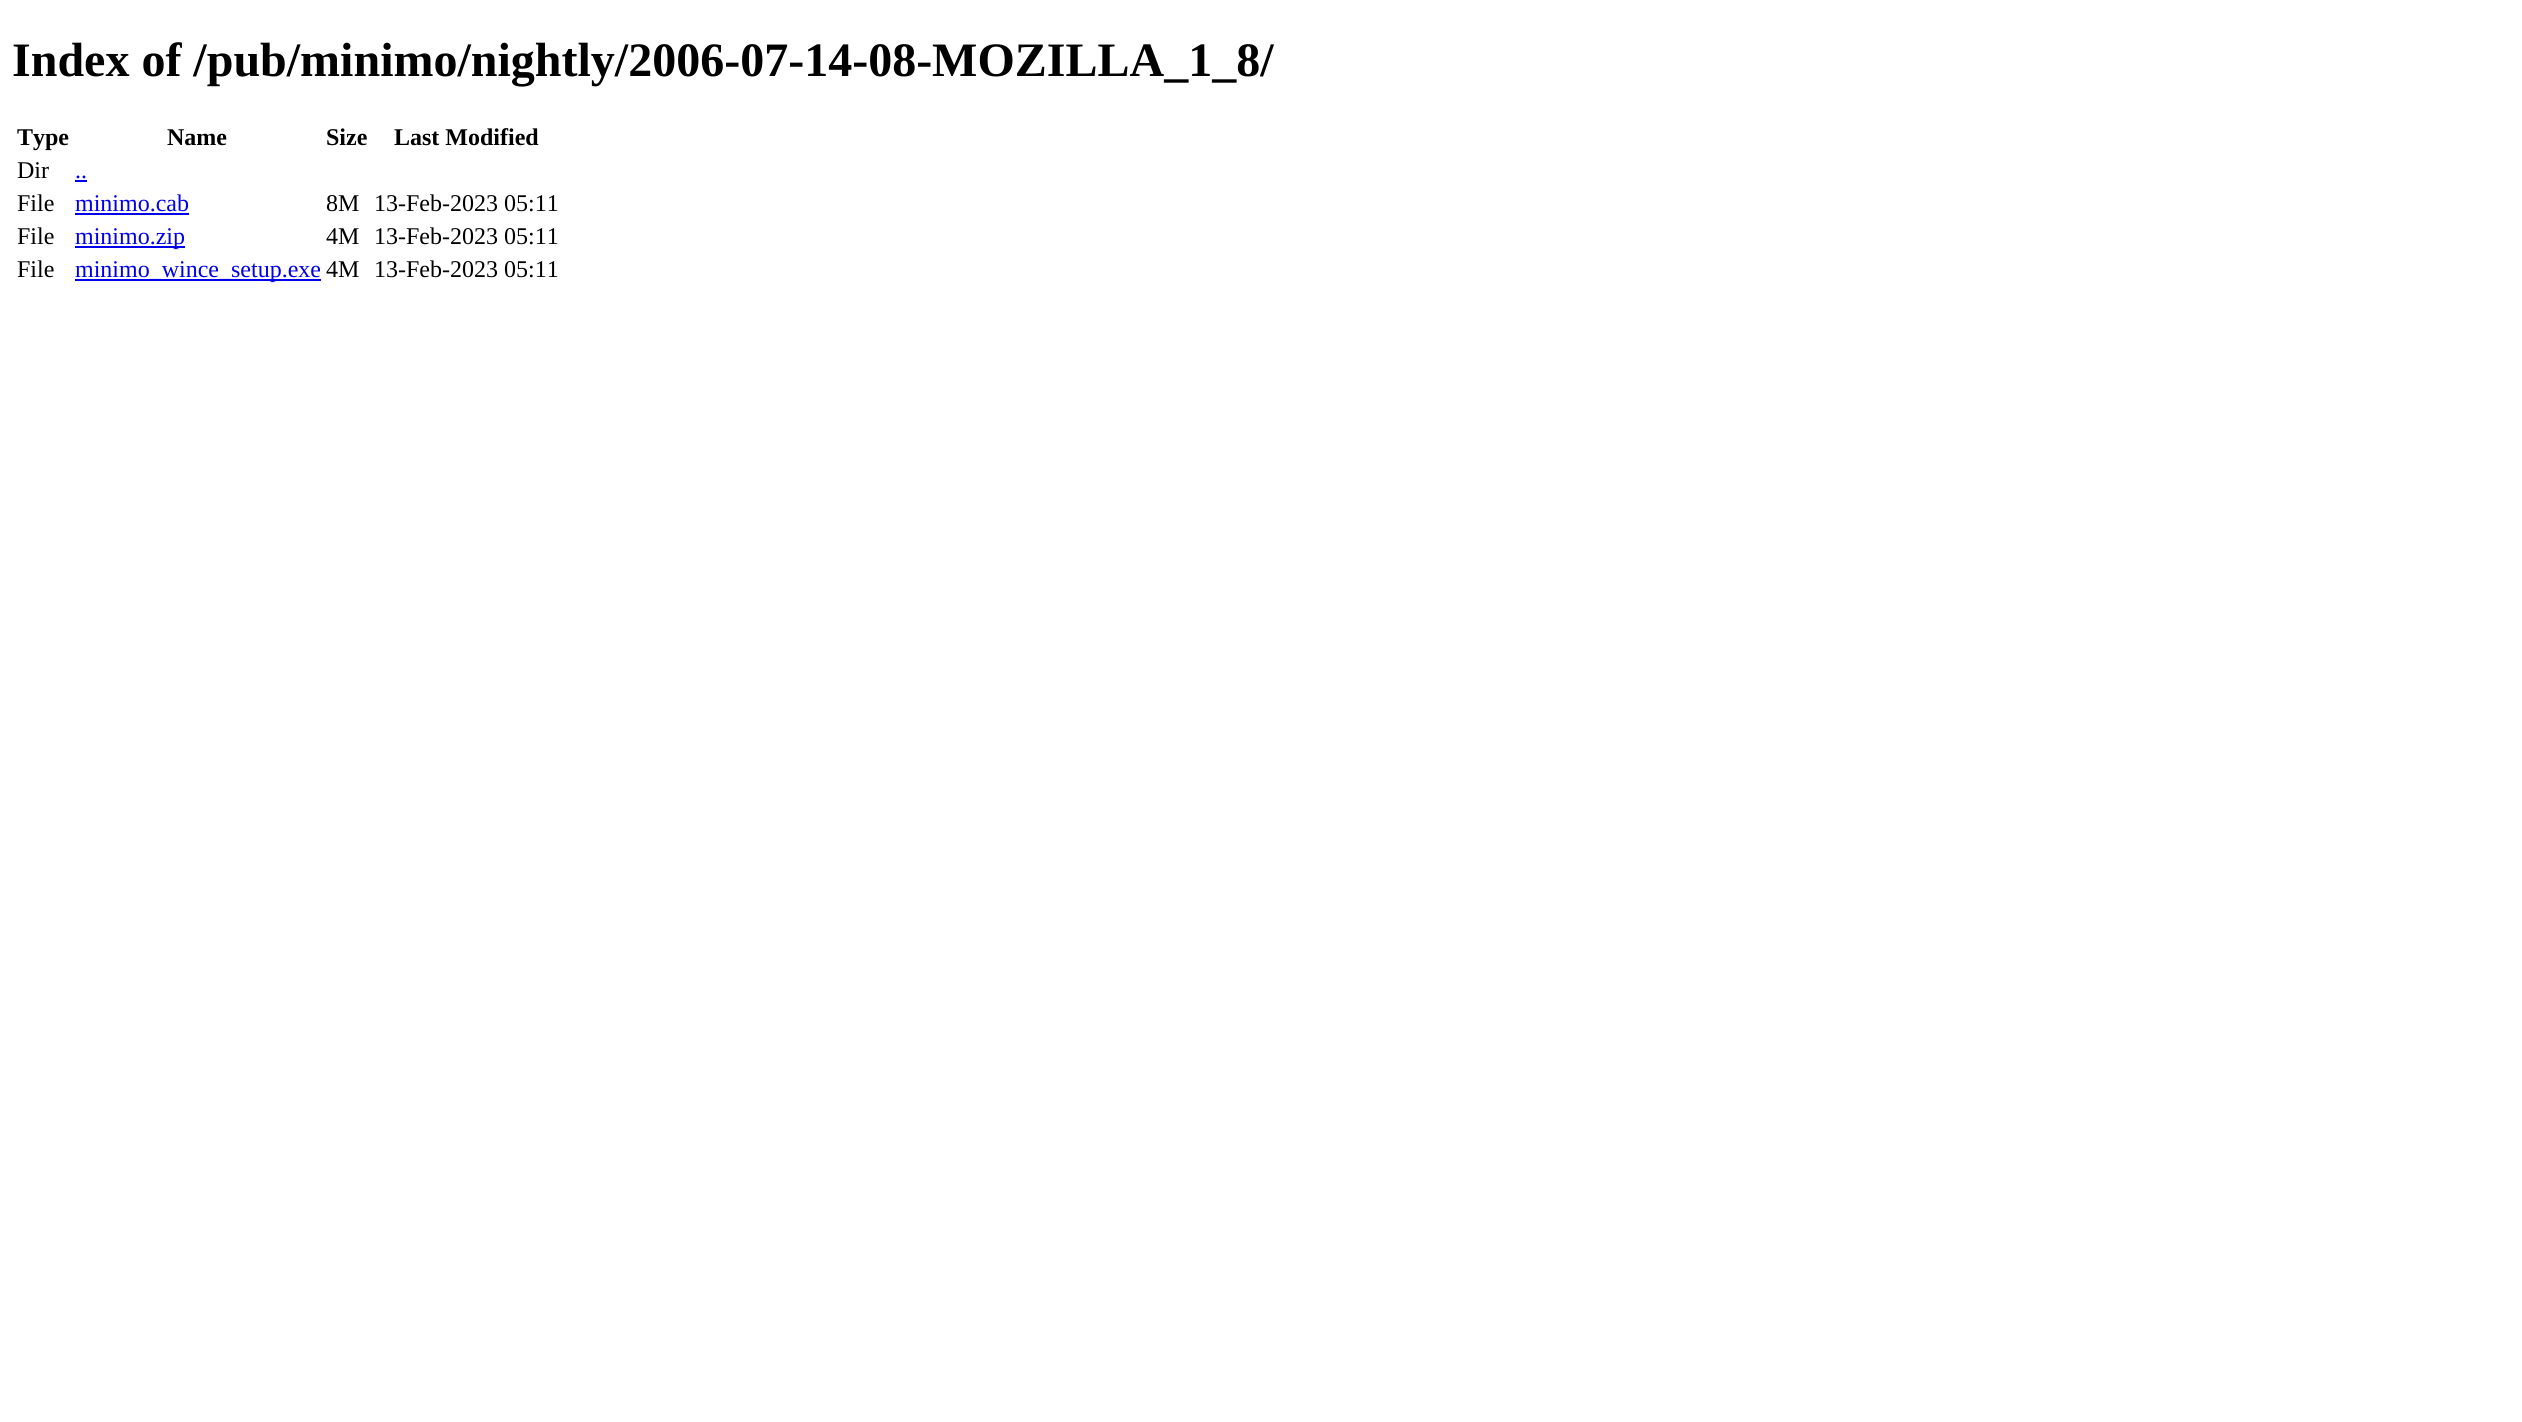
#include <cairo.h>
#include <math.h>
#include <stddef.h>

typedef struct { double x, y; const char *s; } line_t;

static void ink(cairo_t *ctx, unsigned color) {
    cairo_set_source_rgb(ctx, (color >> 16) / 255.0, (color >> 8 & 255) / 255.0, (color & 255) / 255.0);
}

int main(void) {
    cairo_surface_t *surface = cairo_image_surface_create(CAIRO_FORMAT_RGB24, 2522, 1422);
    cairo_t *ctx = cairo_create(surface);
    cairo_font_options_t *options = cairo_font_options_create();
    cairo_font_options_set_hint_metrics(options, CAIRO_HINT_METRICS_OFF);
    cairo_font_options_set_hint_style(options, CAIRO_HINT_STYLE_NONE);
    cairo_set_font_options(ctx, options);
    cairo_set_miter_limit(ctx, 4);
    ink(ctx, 0xFFFFFF);
    cairo_paint(ctx);
    cairo_select_font_face(ctx, "Liberation Serif", CAIRO_FONT_SLANT_NORMAL, CAIRO_FONT_WEIGHT_BOLD);
    cairo_set_font_size(ctx, 48);
    ink(ctx, 0x000000);
    cairo_move_to(ctx, 12, 76);
    cairo_show_text(ctx, "Index of /pub/minimo/nightly/2006-07-14-08-MOZILLA_1_8/");
    cairo_set_font_size(ctx, 24);
    {
        static const line_t items[] = {
            {17, 145, "Type"},
            {167, 145, "Name"},
            {326, 145, "Size"},
            {394, 145, "Last Modified"},
        };
        for (size_t i = 0; i < sizeof items / sizeof *items; i++) {
            cairo_move_to(ctx, items[i].x, items[i].y);
            cairo_show_text(ctx, items[i].s);
        }
    }
    cairo_select_font_face(ctx, "Liberation Serif", CAIRO_FONT_SLANT_NORMAL, CAIRO_FONT_WEIGHT_NORMAL);
    cairo_move_to(ctx, 17, 178);
    cairo_show_text(ctx, "Dir");
    ink(ctx, 0x0000EE);
    cairo_move_to(ctx, 75, 178);
    cairo_show_text(ctx, "..");
    cairo_rectangle(ctx, 75, 180, 12, 2);
    cairo_fill(ctx);
    ink(ctx, 0x000000);
    cairo_move_to(ctx, 17, 211);
    cairo_show_text(ctx, "File");
    ink(ctx, 0x0000EE);
    cairo_move_to(ctx, 75, 211);
    cairo_show_text(ctx, "minimo.cab");
    cairo_rectangle(ctx, 75, 213, 114, 2);
    cairo_fill(ctx);
    ink(ctx, 0x000000);
    {
        static const line_t items[] = {
            {326, 211, "8M"},
            {374, 211, "13-Feb-2023 05:11"},
            {17, 244, "File"},
        };
        for (size_t i = 0; i < sizeof items / sizeof *items; i++) {
            cairo_move_to(ctx, items[i].x, items[i].y);
            cairo_show_text(ctx, items[i].s);
        }
    }
    ink(ctx, 0x0000EE);
    cairo_rectangle(ctx, 75, 246, 110, 2);
    cairo_fill(ctx);
    cairo_move_to(ctx, 75, 244);
    cairo_show_text(ctx, "minimo.zip");
    ink(ctx, 0x000000);
    {
        static const line_t items[] = {
            {326, 244, "4M"},
            {374, 244, "13-Feb-2023 05:11"},
            {17, 277, "File"},
        };
        for (size_t i = 0; i < sizeof items / sizeof *items; i++) {
            cairo_move_to(ctx, items[i].x, items[i].y);
            cairo_show_text(ctx, items[i].s);
        }
    }
    ink(ctx, 0x0000EE);
    cairo_rectangle(ctx, 75, 279, 246, 2);
    cairo_fill(ctx);
    cairo_move_to(ctx, 75, 277);
    cairo_show_text(ctx, "minimo_wince_setup.exe");
    ink(ctx, 0x000000);
    cairo_move_to(ctx, 326, 277);
    cairo_show_text(ctx, "4M");
    cairo_move_to(ctx, 374, 277);
    cairo_show_text(ctx, "13-Feb-2023 05:11");
    cairo_surface_write_to_png(surface, "image.png");
    cairo_font_options_destroy(options);
    cairo_destroy(ctx);
    cairo_surface_destroy(surface);
    return 0;
}
